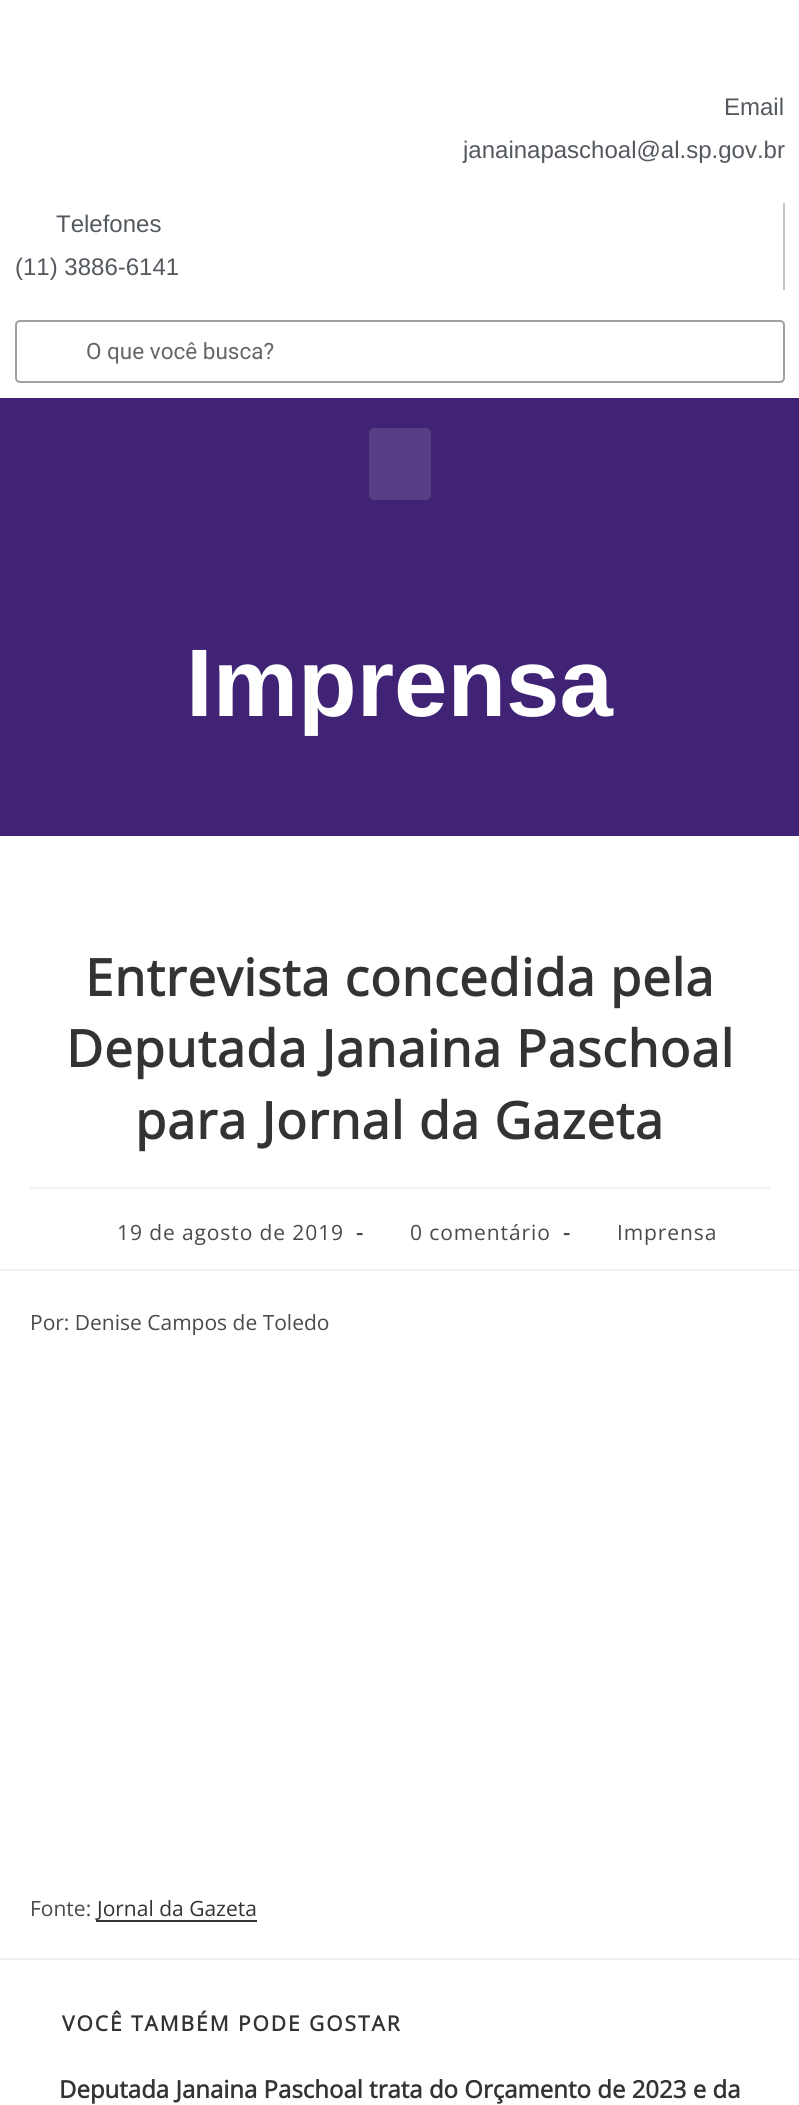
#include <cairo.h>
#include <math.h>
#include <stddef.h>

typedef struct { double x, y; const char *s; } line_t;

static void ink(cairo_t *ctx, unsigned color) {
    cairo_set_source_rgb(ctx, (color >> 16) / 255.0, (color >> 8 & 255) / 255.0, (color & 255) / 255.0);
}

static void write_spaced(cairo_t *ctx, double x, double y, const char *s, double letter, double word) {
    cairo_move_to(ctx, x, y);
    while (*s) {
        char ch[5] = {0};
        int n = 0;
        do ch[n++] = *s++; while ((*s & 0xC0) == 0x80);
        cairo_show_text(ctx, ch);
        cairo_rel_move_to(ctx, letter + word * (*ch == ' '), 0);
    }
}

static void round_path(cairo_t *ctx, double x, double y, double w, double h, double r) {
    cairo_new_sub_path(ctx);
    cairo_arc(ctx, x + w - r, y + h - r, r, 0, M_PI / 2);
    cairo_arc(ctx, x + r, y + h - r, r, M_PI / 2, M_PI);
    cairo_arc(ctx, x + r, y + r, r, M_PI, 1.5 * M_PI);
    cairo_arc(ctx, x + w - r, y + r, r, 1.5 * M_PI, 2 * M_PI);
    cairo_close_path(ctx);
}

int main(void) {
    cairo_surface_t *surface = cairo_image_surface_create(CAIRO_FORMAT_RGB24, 799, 2105);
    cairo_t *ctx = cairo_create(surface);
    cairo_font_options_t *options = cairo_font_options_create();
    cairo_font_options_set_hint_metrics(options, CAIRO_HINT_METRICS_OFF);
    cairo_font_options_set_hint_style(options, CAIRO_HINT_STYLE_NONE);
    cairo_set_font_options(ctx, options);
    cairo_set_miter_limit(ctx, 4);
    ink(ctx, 0xFFFFFF);
    cairo_paint(ctx);
    cairo_select_font_face(ctx, "Liberation Sans", CAIRO_FONT_SLANT_NORMAL, CAIRO_FONT_WEIGHT_NORMAL);
    cairo_set_font_size(ctx, 24);
    ink(ctx, 0x54595F);
    cairo_move_to(ctx, 724, 115);
    cairo_show_text(ctx, "Email");
    cairo_move_to(ctx, 463, 158);
    cairo_show_text(ctx, "janainapaschoal@al.sp.gov.br");
    ink(ctx, 0xC4C4C4);
    cairo_rectangle(ctx, 783, 203, 2, 87);
    cairo_fill(ctx);
    ink(ctx, 0x54595F);
    cairo_move_to(ctx, 56, 232);
    cairo_show_text(ctx, "Telefones");
    cairo_move_to(ctx, 15, 275);
    cairo_show_text(ctx, "(11) 3886-6141");
    round_path(ctx, 16, 321, 768, 61, 4);
    ink(ctx, 0xA1A1A1);
    cairo_stroke(ctx);
    cairo_select_font_face(ctx, "Roboto", CAIRO_FONT_SLANT_NORMAL, CAIRO_FONT_WEIGHT_NORMAL);
    cairo_set_font_size(ctx, 22.5);
    ink(ctx, 0x666666);
    cairo_move_to(ctx, 86, 359);
    cairo_show_text(ctx, "O que você busca?");
    ink(ctx, 0x402375);
    cairo_rectangle(ctx, 0, 398, 799, 438);
    cairo_fill(ctx);
    ink(ctx, 0x573D86);
    round_path(ctx, 369, 428, 62, 72, 5);
    cairo_fill(ctx);
    cairo_select_font_face(ctx, "Liberation Sans", CAIRO_FONT_SLANT_NORMAL, CAIRO_FONT_WEIGHT_BOLD);
    cairo_set_font_size(ctx, 96);
    ink(ctx, 0xFFFFFF);
    cairo_move_to(ctx, 186, 716);
    cairo_show_text(ctx, "Imprensa");
    ink(ctx, 0xF1F1F1);
    cairo_rectangle(ctx, 30, 1187, 740, 2);
    cairo_fill(ctx);
    cairo_select_font_face(ctx, "Open Sans", CAIRO_FONT_SLANT_NORMAL, CAIRO_FONT_WEIGHT_BOLD);
    cairo_set_font_size(ctx, 51);
    ink(ctx, 0x333333);
    {
        static const line_t items[] = {
            {85, 996, "Entrevista concedida pela"},
            {66, 1067, "Deputada Janaina Paschoal"},
            {135, 1139, "para Jornal da Gazeta"},
        };
        for (size_t i = 0; i < sizeof items / sizeof *items; i++) {
            write_spaced(ctx, items[i].x, items[i].y, items[i].s, 0.9, 0);
        }
    }
    ink(ctx, 0xF1F1F1);
    cairo_rectangle(ctx, 0, 1269, 799, 2);
    cairo_fill(ctx);
    cairo_select_font_face(ctx, "Open Sans", CAIRO_FONT_SLANT_NORMAL, CAIRO_FONT_WEIGHT_NORMAL);
    cairo_set_font_size(ctx, 21);
    ink(ctx, 0x4A4A4A);
    write_spaced(ctx, 117, 1240, "19 de agosto de 2019", 0.9, 0);
    cairo_select_font_face(ctx, "Open Sans", CAIRO_FONT_SLANT_NORMAL, CAIRO_FONT_WEIGHT_BOLD);
    write_spaced(ctx, 356, 1240, "-", 0.9, 0);
    cairo_select_font_face(ctx, "Open Sans", CAIRO_FONT_SLANT_NORMAL, CAIRO_FONT_WEIGHT_NORMAL);
    write_spaced(ctx, 410, 1240, "0 comentário", 0.9, 0);
    cairo_select_font_face(ctx, "Open Sans", CAIRO_FONT_SLANT_NORMAL, CAIRO_FONT_WEIGHT_BOLD);
    write_spaced(ctx, 563, 1240, "-", 0.9, 0);
    cairo_select_font_face(ctx, "Open Sans", CAIRO_FONT_SLANT_NORMAL, CAIRO_FONT_WEIGHT_NORMAL);
    write_spaced(ctx, 617, 1240, "Imprensa", 0.9, 0);
    cairo_move_to(ctx, 30, 1330);
    cairo_show_text(ctx, "Por: Denise Campos de Toledo");
    cairo_move_to(ctx, 30, 1916);
    cairo_show_text(ctx, "Fonte:");
    ink(ctx, 0x333333);
    cairo_move_to(ctx, 97, 1916);
    cairo_show_text(ctx, "Jornal da Gazeta");
    cairo_rectangle(ctx, 96, 1920, 161, 2);
    cairo_fill(ctx);
    ink(ctx, 0xF1F1F1);
    cairo_rectangle(ctx, 0, 1958, 799, 2);
    cairo_fill(ctx);
    cairo_select_font_face(ctx, "Open Sans", CAIRO_FONT_SLANT_NORMAL, CAIRO_FONT_WEIGHT_BOLD);
    ink(ctx, 0x333333);
    write_spaced(ctx, 62, 2031, "VOCÊ TAMBÉM PODE GOSTAR", 1.95, 0);
    cairo_set_font_size(ctx, 24);
    cairo_move_to(ctx, 59, 2098);
    cairo_show_text(ctx, "Deputada Janaina Paschoal trata do Orçamento de 2023 e da");
    cairo_surface_write_to_png(surface, "image.png");
    cairo_font_options_destroy(options);
    cairo_destroy(ctx);
    cairo_surface_destroy(surface);
    return 0;
}
